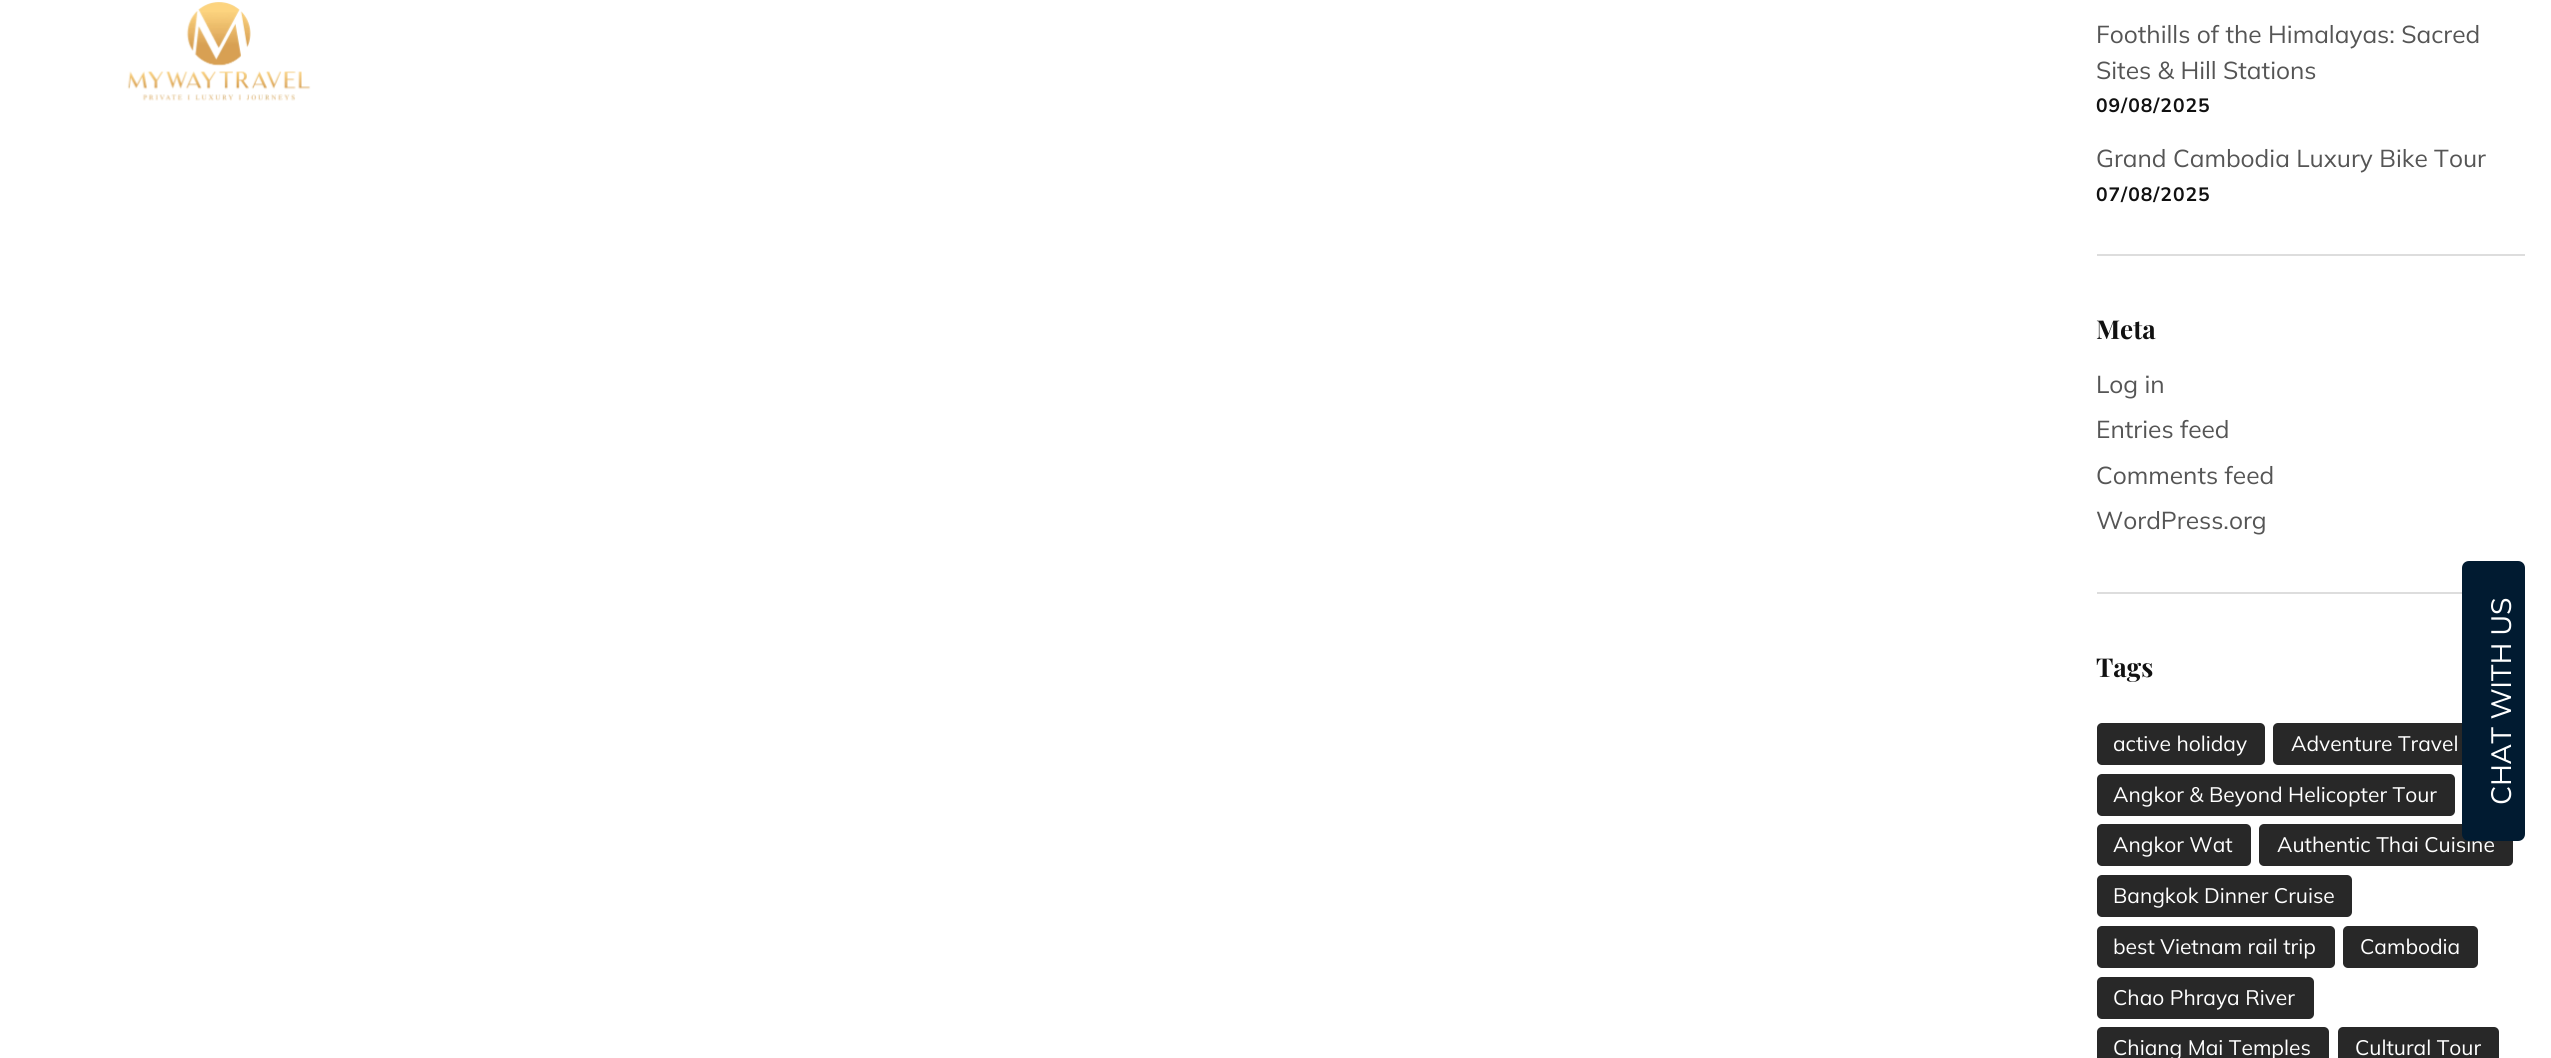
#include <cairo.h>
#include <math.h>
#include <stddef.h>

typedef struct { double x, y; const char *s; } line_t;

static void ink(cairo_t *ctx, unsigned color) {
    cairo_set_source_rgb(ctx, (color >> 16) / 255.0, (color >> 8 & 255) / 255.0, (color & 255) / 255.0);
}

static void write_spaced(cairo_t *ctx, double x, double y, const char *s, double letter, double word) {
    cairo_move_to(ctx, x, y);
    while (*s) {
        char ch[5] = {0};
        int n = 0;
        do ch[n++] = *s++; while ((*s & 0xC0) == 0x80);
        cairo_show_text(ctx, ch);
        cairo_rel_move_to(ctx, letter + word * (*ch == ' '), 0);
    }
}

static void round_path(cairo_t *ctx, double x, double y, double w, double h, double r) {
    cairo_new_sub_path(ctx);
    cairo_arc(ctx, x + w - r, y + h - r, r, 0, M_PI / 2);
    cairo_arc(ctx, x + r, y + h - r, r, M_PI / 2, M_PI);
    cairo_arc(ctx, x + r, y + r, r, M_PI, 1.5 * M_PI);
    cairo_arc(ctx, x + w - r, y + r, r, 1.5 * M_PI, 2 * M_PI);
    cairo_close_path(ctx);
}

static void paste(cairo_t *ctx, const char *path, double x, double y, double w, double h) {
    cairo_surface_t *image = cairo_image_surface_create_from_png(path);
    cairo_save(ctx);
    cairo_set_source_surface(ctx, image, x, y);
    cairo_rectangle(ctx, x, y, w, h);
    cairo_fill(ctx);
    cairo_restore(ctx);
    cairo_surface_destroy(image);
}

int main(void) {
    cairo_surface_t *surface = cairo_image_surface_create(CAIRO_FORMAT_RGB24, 2551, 1058);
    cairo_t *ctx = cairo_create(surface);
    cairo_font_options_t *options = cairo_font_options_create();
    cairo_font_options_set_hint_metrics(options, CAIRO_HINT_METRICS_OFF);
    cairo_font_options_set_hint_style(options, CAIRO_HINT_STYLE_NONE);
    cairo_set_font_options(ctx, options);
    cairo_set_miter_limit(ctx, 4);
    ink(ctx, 0xFFFFFF);
    cairo_paint(ctx);
    paste(ctx, "media/1.png", 127, 2, 184, 99);
    cairo_set_source_rgba(ctx, 1, 1, 1, 0.08);
    round_path(ctx, 2105, 26, 285, 61, 8);
    cairo_fill_preserve(ctx);
    ink(ctx, 0xFFFFFF);
    cairo_stroke(ctx);
    ink(ctx, 0xDDDDDD);
    cairo_rectangle(ctx, 2097, 254, 428, 2);
    cairo_fill(ctx);
    cairo_select_font_face(ctx, "Mulish", CAIRO_FONT_SLANT_NORMAL, CAIRO_FONT_WEIGHT_NORMAL);
    cairo_set_font_size(ctx, 24.5);
    ink(ctx, 0x555555);
    cairo_move_to(ctx, 2096, 43);
    cairo_show_text(ctx, "Foothills of the Himalayas: Sacred");
    cairo_move_to(ctx, 2096, 79);
    cairo_show_text(ctx, "Sites & Hill Stations");
    cairo_select_font_face(ctx, "Mulish", CAIRO_FONT_SLANT_NORMAL, CAIRO_FONT_WEIGHT_BOLD);
    cairo_set_font_size(ctx, 19.25);
    ink(ctx, 0x111111);
    write_spaced(ctx, 2096, 112, "09/08/2025", 1, 0);
    cairo_select_font_face(ctx, "Mulish", CAIRO_FONT_SLANT_NORMAL, CAIRO_FONT_WEIGHT_NORMAL);
    cairo_set_font_size(ctx, 24.5);
    ink(ctx, 0x555555);
    cairo_move_to(ctx, 2096, 167);
    cairo_show_text(ctx, "Grand Cambodia Luxury Bike Tour");
    cairo_select_font_face(ctx, "Mulish", CAIRO_FONT_SLANT_NORMAL, CAIRO_FONT_WEIGHT_BOLD);
    cairo_set_font_size(ctx, 19.25);
    ink(ctx, 0x111111);
    write_spaced(ctx, 2096, 201, "07/08/2025", 1, 0);
    ink(ctx, 0xDDDDDD);
    cairo_rectangle(ctx, 2097, 592, 365, 2);
    cairo_fill(ctx);
    cairo_select_font_face(ctx, "Playfair Display", CAIRO_FONT_SLANT_NORMAL, CAIRO_FONT_WEIGHT_BOLD);
    cairo_set_font_size(ctx, 26);
    ink(ctx, 0x111111);
    cairo_move_to(ctx, 2096, 339);
    cairo_show_text(ctx, "Meta");
    cairo_select_font_face(ctx, "Mulish", CAIRO_FONT_SLANT_NORMAL, CAIRO_FONT_WEIGHT_NORMAL);
    cairo_set_font_size(ctx, 24.5);
    ink(ctx, 0x555555);
    {
        static const line_t items[] = {
            {2096, 393, "Log in"},
            {2096, 438, "Entries feed"},
            {2096, 484, "Comments feed"},
            {2096, 529, "WordPress.org"},
        };
        for (size_t i = 0; i < sizeof items / sizeof *items; i++) {
            cairo_move_to(ctx, items[i].x, items[i].y);
            cairo_show_text(ctx, items[i].s);
        }
    }
    cairo_select_font_face(ctx, "Playfair Display", CAIRO_FONT_SLANT_NORMAL, CAIRO_FONT_WEIGHT_BOLD);
    cairo_set_font_size(ctx, 26);
    ink(ctx, 0x111111);
    cairo_move_to(ctx, 2096, 677);
    cairo_show_text(ctx, "Tags");
    ink(ctx, 0x282828);
    round_path(ctx, 2097, 723, 168, 42, 5);
    cairo_fill(ctx);
    cairo_select_font_face(ctx, "Mulish", CAIRO_FONT_SLANT_NORMAL, CAIRO_FONT_WEIGHT_NORMAL);
    cairo_set_font_size(ctx, 21);
    ink(ctx, 0xFFFFFF);
    cairo_move_to(ctx, 2113, 751);
    cairo_show_text(ctx, "active holiday");
    ink(ctx, 0x282828);
    round_path(ctx, 2273, 723, 203, 42, 5);
    cairo_fill(ctx);
    ink(ctx, 0xFFFFFF);
    cairo_move_to(ctx, 2291, 751);
    cairo_show_text(ctx, "Adventure Travel");
    ink(ctx, 0x282828);
    round_path(ctx, 2097, 774, 358, 42, 5);
    cairo_fill(ctx);
    ink(ctx, 0xFFFFFF);
    cairo_move_to(ctx, 2113, 802);
    cairo_show_text(ctx, "Angkor & Beyond Helicopter Tour");
    ink(ctx, 0x282828);
    round_path(ctx, 2097, 824, 154, 42, 5);
    cairo_fill(ctx);
    ink(ctx, 0xFFFFFF);
    cairo_move_to(ctx, 2113, 852);
    cairo_show_text(ctx, "Angkor Wat");
    ink(ctx, 0x282828);
    round_path(ctx, 2259, 824, 254, 42, 5);
    cairo_fill(ctx);
    ink(ctx, 0xFFFFFF);
    cairo_move_to(ctx, 2277, 852);
    cairo_show_text(ctx, "Authentic Thai Cuisine");
    ink(ctx, 0x282828);
    round_path(ctx, 2097, 875, 255, 42, 5);
    cairo_fill(ctx);
    ink(ctx, 0xFFFFFF);
    cairo_move_to(ctx, 2113, 903);
    cairo_show_text(ctx, "Bangkok Dinner Cruise");
    ink(ctx, 0x282828);
    round_path(ctx, 2097, 926, 238, 42, 5);
    cairo_fill(ctx);
    ink(ctx, 0xFFFFFF);
    cairo_move_to(ctx, 2113, 954);
    cairo_show_text(ctx, "best Vietnam rail trip");
    ink(ctx, 0x282828);
    round_path(ctx, 2343, 926, 135, 42, 5);
    cairo_fill(ctx);
    ink(ctx, 0xFFFFFF);
    cairo_move_to(ctx, 2360, 954);
    cairo_show_text(ctx, "Cambodia");
    ink(ctx, 0x282828);
    round_path(ctx, 2097, 977, 217, 42, 5);
    cairo_fill(ctx);
    ink(ctx, 0xFFFFFF);
    cairo_move_to(ctx, 2113, 1005);
    cairo_show_text(ctx, "Chao Phraya River");
    ink(ctx, 0x282828);
    round_path(ctx, 2097, 1027, 232, 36, 5);
    cairo_fill(ctx);
    ink(ctx, 0xFFFFFF);
    cairo_move_to(ctx, 2113, 1055);
    cairo_show_text(ctx, "Chiang Mai Temples");
    ink(ctx, 0x282828);
    round_path(ctx, 2338, 1027, 161, 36, 5);
    cairo_fill(ctx);
    ink(ctx, 0xFFFFFF);
    cairo_move_to(ctx, 2355, 1055);
    cairo_show_text(ctx, "Cultural Tour");
    ink(ctx, 0x011B31);
    cairo_new_path(ctx);
    cairo_move_to(ctx, 2462, 834);
    cairo_line_to(ctx, 2462, 568);
    cairo_curve_to(ctx, 2462, 564, 2465, 561, 2469, 561);
    cairo_line_to(ctx, 2518, 561);
    cairo_curve_to(ctx, 2522, 561, 2525, 564, 2525, 568);
    cairo_line_to(ctx, 2525, 834);
    cairo_curve_to(ctx, 2525, 838, 2522, 841, 2518, 841);
    cairo_line_to(ctx, 2469, 841);
    cairo_curve_to(ctx, 2465, 841, 2462, 838, 2462, 834);
    cairo_close_path(ctx);
    cairo_fill(ctx);
    cairo_set_font_size(ctx, 28);
    ink(ctx, 0xFFFFFF);
    cairo_save(ctx);
    cairo_translate(ctx, 2511, 805);
    cairo_rotate(ctx, -90 * M_PI / 180);
    cairo_move_to(ctx, 0, 0);
    cairo_show_text(ctx, "CHAT WITH US");
    cairo_restore(ctx);
    cairo_surface_write_to_png(surface, "image.png");
    cairo_font_options_destroy(options);
    cairo_destroy(ctx);
    cairo_surface_destroy(surface);
    return 0;
}
